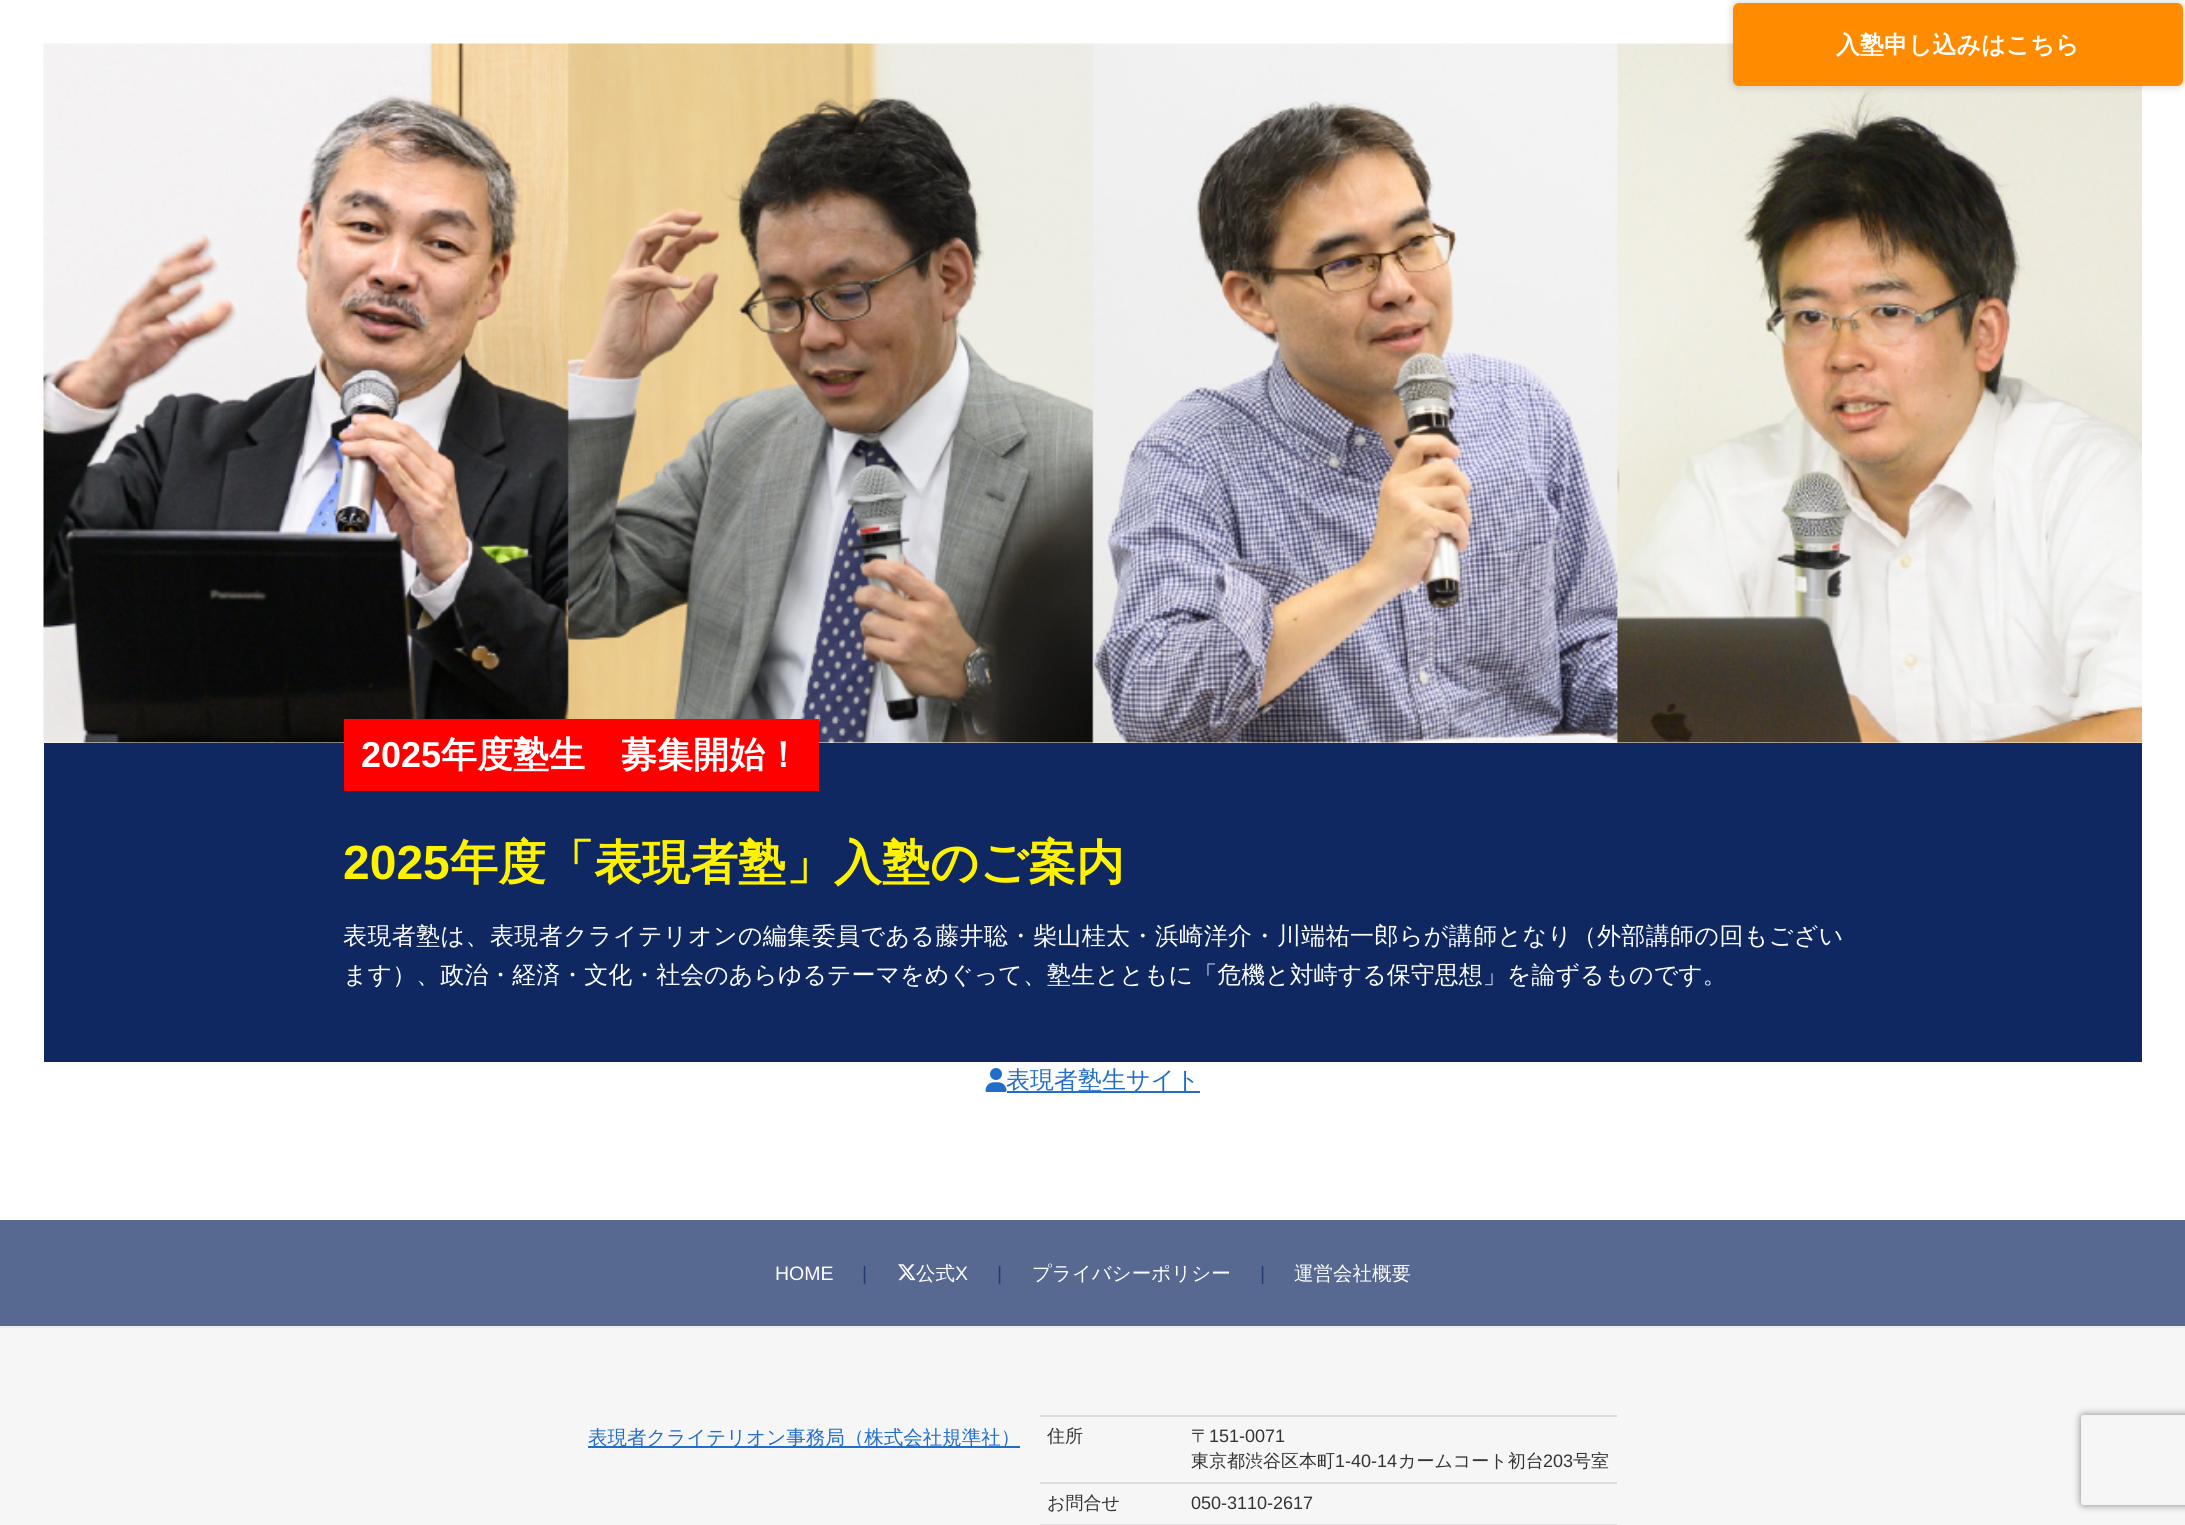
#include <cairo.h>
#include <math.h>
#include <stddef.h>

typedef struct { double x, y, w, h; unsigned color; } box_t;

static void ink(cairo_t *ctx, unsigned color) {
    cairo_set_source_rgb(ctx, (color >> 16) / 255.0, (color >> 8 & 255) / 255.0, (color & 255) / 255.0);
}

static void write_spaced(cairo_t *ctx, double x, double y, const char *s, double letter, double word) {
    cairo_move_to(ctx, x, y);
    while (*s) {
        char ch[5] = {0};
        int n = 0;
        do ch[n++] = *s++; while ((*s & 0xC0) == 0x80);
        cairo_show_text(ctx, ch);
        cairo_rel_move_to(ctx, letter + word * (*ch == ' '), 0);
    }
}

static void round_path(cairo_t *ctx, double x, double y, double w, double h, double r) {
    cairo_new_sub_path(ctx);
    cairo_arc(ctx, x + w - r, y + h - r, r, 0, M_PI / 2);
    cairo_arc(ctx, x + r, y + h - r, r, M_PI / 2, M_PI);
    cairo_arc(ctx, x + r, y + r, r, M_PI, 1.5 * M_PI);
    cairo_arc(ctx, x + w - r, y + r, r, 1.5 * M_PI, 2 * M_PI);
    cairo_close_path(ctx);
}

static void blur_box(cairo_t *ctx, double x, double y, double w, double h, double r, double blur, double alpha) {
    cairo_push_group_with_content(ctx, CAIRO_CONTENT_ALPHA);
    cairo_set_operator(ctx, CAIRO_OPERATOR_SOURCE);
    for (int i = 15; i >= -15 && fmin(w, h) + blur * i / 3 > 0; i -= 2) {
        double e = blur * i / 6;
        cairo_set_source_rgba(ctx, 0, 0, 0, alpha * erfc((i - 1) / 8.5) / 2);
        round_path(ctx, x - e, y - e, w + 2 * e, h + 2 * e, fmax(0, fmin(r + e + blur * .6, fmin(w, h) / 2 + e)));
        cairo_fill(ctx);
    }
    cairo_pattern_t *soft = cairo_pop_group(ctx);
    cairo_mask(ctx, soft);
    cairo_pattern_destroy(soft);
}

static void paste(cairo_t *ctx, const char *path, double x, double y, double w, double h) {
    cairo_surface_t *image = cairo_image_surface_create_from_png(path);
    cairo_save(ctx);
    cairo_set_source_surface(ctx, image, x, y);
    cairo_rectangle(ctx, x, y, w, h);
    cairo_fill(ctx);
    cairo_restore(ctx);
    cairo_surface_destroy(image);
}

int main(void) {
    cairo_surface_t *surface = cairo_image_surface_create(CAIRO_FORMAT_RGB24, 2185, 1525);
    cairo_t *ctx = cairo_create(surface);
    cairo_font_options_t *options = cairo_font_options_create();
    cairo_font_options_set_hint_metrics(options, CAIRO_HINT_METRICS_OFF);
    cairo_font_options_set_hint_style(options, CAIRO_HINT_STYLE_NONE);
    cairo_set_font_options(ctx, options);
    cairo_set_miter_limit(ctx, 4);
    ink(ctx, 0xFFFFFF);
    cairo_paint(ctx);
    paste(ctx, "media/1.png", 43, 43, 2099, 700);
    ink(ctx, 0x000000);
    blur_box(ctx, 1730, 0, 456, 89, 9, 3, 0.1);
    ink(ctx, 0xFF8C00);
    round_path(ctx, 1734.5, 4.5, 447, 80, 4.5);
    cairo_fill_preserve(ctx);
    cairo_set_line_width(ctx, 3);
    cairo_stroke(ctx);
    cairo_select_font_face(ctx, "WenQuanYi Zen Hei", CAIRO_FONT_SLANT_NORMAL, CAIRO_FONT_WEIGHT_BOLD);
    cairo_set_font_size(ctx, 24);
    ink(ctx, 0xFFFFFF);
    cairo_move_to(ctx, 1836, 53);
    cairo_show_text(ctx, "入塾申し込みはこちら");
    ink(ctx, 0x0F2862);
    cairo_rectangle(ctx, 44, 743, 2098, 319);
    cairo_fill(ctx);
    ink(ctx, 0xFF0000);
    cairo_rectangle(ctx, 344, 719, 475, 72);
    cairo_fill(ctx);
    cairo_select_font_face(ctx, "Liberation Sans", CAIRO_FONT_SLANT_NORMAL, CAIRO_FONT_WEIGHT_BOLD);
    cairo_set_font_size(ctx, 36);
    ink(ctx, 0xFFFFFF);
    cairo_move_to(ctx, 361, 767);
    cairo_show_text(ctx, "2025");
    cairo_select_font_face(ctx, "WenQuanYi Zen Hei", CAIRO_FONT_SLANT_NORMAL, CAIRO_FONT_WEIGHT_BOLD);
    cairo_move_to(ctx, 441, 767);
    cairo_show_text(ctx, "年度塾生　募集開始！");
    cairo_select_font_face(ctx, "Liberation Sans", CAIRO_FONT_SLANT_NORMAL, CAIRO_FONT_WEIGHT_BOLD);
    cairo_set_font_size(ctx, 48);
    ink(ctx, 0xFFF200);
    cairo_move_to(ctx, 343, 879);
    cairo_show_text(ctx, "2025");
    cairo_select_font_face(ctx, "WenQuanYi Zen Hei", CAIRO_FONT_SLANT_NORMAL, CAIRO_FONT_WEIGHT_BOLD);
    cairo_move_to(ctx, 450, 879);
    cairo_show_text(ctx, "年度「表現者塾」入塾のご案内");
    cairo_select_font_face(ctx, "WenQuanYi Zen Hei Medium", CAIRO_FONT_SLANT_NORMAL, CAIRO_FONT_WEIGHT_NORMAL);
    cairo_set_font_size(ctx, 24);
    ink(ctx, 0xFFFFFF);
    write_spaced(ctx, 343, 944, "表現者塾は、表現者クライテリオンの編集委員である藤井聡・柴山桂太・浜崎洋介・川端祐一郎らが講師となり（外部講師の回もござい", 0.4, 0);
    cairo_move_to(ctx, 343, 983);
    cairo_show_text(ctx, "ます）、政治・経済・文化・社会のあらゆるテーマをめぐって、塾生とともに「危機と対峙する保守思想」を論ずるものです。");
    paste(ctx, "media/2.png", 985, 1068, 22, 24);
    ink(ctx, 0x216DCA);
    cairo_rectangle(ctx, 1007, 1091, 193, 2);
    cairo_fill(ctx);
    cairo_move_to(ctx, 1006, 1088);
    cairo_show_text(ctx, "表現者塾生サイト");
    ink(ctx, 0x576991);
    cairo_rectangle(ctx, 0, 1220, 2185, 106);
    cairo_fill(ctx);
    cairo_select_font_face(ctx, "Liberation Sans", CAIRO_FONT_SLANT_NORMAL, CAIRO_FONT_WEIGHT_NORMAL);
    cairo_set_font_size(ctx, 19.5);
    ink(ctx, 0xFFFFFF);
    cairo_move_to(ctx, 775, 1280);
    cairo_show_text(ctx, "HOME");
    ink(ctx, 0x253C70);
    cairo_move_to(ctx, 862, 1280);
    cairo_show_text(ctx, "|");
    paste(ctx, "media/3.png", 898, 1264, 18, 17);
    cairo_select_font_face(ctx, "WenQuanYi Zen Hei Medium", CAIRO_FONT_SLANT_NORMAL, CAIRO_FONT_WEIGHT_NORMAL);
    ink(ctx, 0xFFFFFF);
    cairo_move_to(ctx, 916, 1280);
    cairo_show_text(ctx, "公式");
    cairo_select_font_face(ctx, "Liberation Sans", CAIRO_FONT_SLANT_NORMAL, CAIRO_FONT_WEIGHT_NORMAL);
    cairo_move_to(ctx, 955, 1280);
    cairo_show_text(ctx, "X");
    ink(ctx, 0x253C70);
    cairo_move_to(ctx, 997, 1280);
    cairo_show_text(ctx, "|");
    cairo_select_font_face(ctx, "WenQuanYi Zen Hei Medium", CAIRO_FONT_SLANT_NORMAL, CAIRO_FONT_WEIGHT_NORMAL);
    ink(ctx, 0xFFFFFF);
    cairo_move_to(ctx, 1032, 1280);
    cairo_show_text(ctx, "プライバシーポリシー");
    cairo_select_font_face(ctx, "Liberation Sans", CAIRO_FONT_SLANT_NORMAL, CAIRO_FONT_WEIGHT_NORMAL);
    ink(ctx, 0x253C70);
    cairo_move_to(ctx, 1260, 1280);
    cairo_show_text(ctx, "|");
    cairo_select_font_face(ctx, "WenQuanYi Zen Hei Medium", CAIRO_FONT_SLANT_NORMAL, CAIRO_FONT_WEIGHT_NORMAL);
    ink(ctx, 0xFFFFFF);
    cairo_move_to(ctx, 1294, 1280);
    cairo_show_text(ctx, "運営会社概要");
    {
        static const box_t items[] = {
            {0, 1328, 2185, 197, 0xF6F6F6},
            {0, 1326, 2185, 2, 0xEEEEEE},
            {588, 1446, 432, 2, 0x216DCA},
        };
        for (size_t i = 0; i < sizeof items / sizeof *items; i++) {
            ink(ctx, items[i].color);
            cairo_rectangle(ctx, items[i].x, items[i].y, items[i].w, items[i].h);
            cairo_fill(ctx);
        }
    }
    cairo_move_to(ctx, 588, 1444);
    cairo_show_text(ctx, "表現者クライテリオン事務局（株式会社規準社）");
    ink(ctx, 0xDDDDDD);
    cairo_rectangle(ctx, 1040, 1415, 577, 2);
    cairo_fill(ctx);
    cairo_rectangle(ctx, 1040, 1482, 577, 2);
    cairo_fill(ctx);
    cairo_set_font_size(ctx, 18);
    ink(ctx, 0x333333);
    cairo_move_to(ctx, 1047, 1442);
    cairo_show_text(ctx, "住所");
    cairo_move_to(ctx, 1191, 1442);
    cairo_show_text(ctx, "〒");
    cairo_select_font_face(ctx, "Liberation Sans", CAIRO_FONT_SLANT_NORMAL, CAIRO_FONT_WEIGHT_NORMAL);
    cairo_move_to(ctx, 1209, 1442);
    cairo_show_text(ctx, "151-0071");
    cairo_select_font_face(ctx, "WenQuanYi Zen Hei Medium", CAIRO_FONT_SLANT_NORMAL, CAIRO_FONT_WEIGHT_NORMAL);
    cairo_move_to(ctx, 1191, 1467);
    cairo_show_text(ctx, "東京都渋谷区本町");
    cairo_select_font_face(ctx, "Liberation Sans", CAIRO_FONT_SLANT_NORMAL, CAIRO_FONT_WEIGHT_NORMAL);
    cairo_move_to(ctx, 1335, 1467);
    cairo_show_text(ctx, "1-40-14");
    cairo_select_font_face(ctx, "WenQuanYi Zen Hei Medium", CAIRO_FONT_SLANT_NORMAL, CAIRO_FONT_WEIGHT_NORMAL);
    cairo_move_to(ctx, 1398, 1467);
    cairo_show_text(ctx, "カームコート初台");
    cairo_select_font_face(ctx, "Liberation Sans", CAIRO_FONT_SLANT_NORMAL, CAIRO_FONT_WEIGHT_NORMAL);
    cairo_move_to(ctx, 1543, 1467);
    cairo_show_text(ctx, "203");
    cairo_select_font_face(ctx, "WenQuanYi Zen Hei Medium", CAIRO_FONT_SLANT_NORMAL, CAIRO_FONT_WEIGHT_NORMAL);
    cairo_move_to(ctx, 1573, 1467);
    cairo_show_text(ctx, "号室");
    ink(ctx, 0xDDDDDD);
    cairo_rectangle(ctx, 1040, 1524, 577, 1);
    cairo_fill(ctx);
    ink(ctx, 0x333333);
    cairo_move_to(ctx, 1047, 1509);
    cairo_show_text(ctx, "お問合せ");
    cairo_select_font_face(ctx, "Liberation Sans", CAIRO_FONT_SLANT_NORMAL, CAIRO_FONT_WEIGHT_NORMAL);
    cairo_move_to(ctx, 1191, 1509);
    cairo_show_text(ctx, "050-3110-2617");
    cairo_save(ctx);
    cairo_set_fill_rule(ctx, CAIRO_FILL_RULE_EVEN_ODD);
    cairo_new_path(ctx);
    cairo_move_to(ctx, 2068, 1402);
    cairo_line_to(ctx, 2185, 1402);
    cairo_line_to(ctx, 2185, 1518);
    cairo_line_to(ctx, 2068, 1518);
    cairo_close_path(ctx);
    cairo_move_to(ctx, 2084, 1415);
    cairo_line_to(ctx, 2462, 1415);
    cairo_curve_to(ctx, 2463.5, 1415, 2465, 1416.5, 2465, 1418);
    cairo_line_to(ctx, 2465, 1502);
    cairo_curve_to(ctx, 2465, 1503.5, 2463.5, 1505, 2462, 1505);
    cairo_line_to(ctx, 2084, 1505);
    cairo_curve_to(ctx, 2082.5, 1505, 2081, 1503.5, 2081, 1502);
    cairo_line_to(ctx, 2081, 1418);
    cairo_curve_to(ctx, 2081, 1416.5, 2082.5, 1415, 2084, 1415);
    cairo_close_path(ctx);
    cairo_clip(ctx);
    ink(ctx, 0x808080);
    blur_box(ctx, 2081, 1415, 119, 90, 3, 4, 1);
    cairo_restore(ctx);
    cairo_surface_write_to_png(surface, "image.png");
    cairo_font_options_destroy(options);
    cairo_destroy(ctx);
    cairo_surface_destroy(surface);
    return 0;
}
